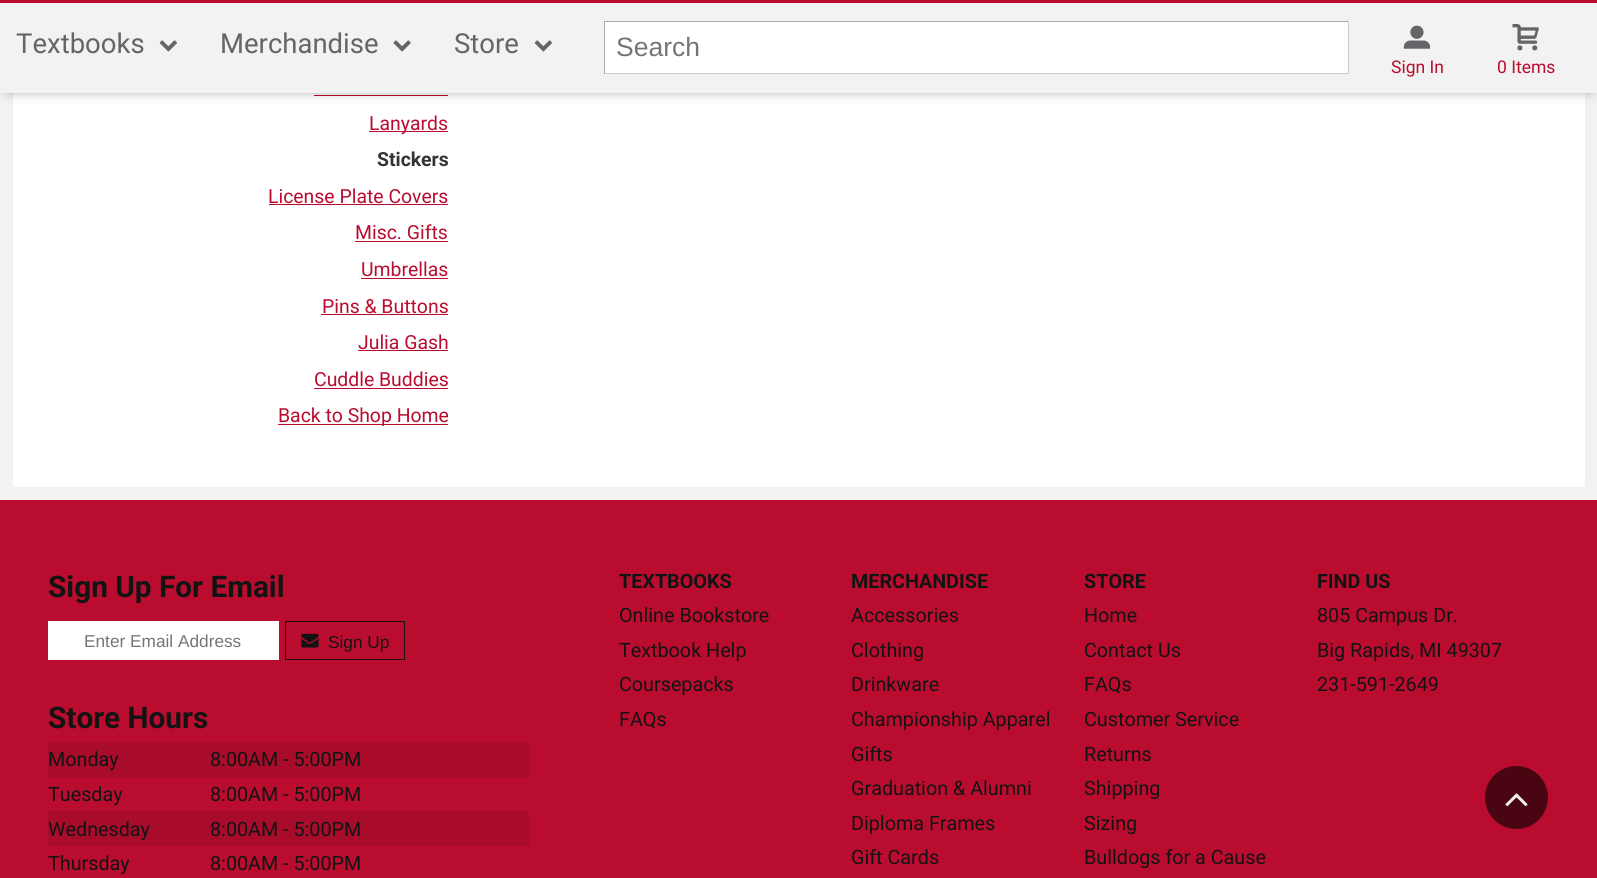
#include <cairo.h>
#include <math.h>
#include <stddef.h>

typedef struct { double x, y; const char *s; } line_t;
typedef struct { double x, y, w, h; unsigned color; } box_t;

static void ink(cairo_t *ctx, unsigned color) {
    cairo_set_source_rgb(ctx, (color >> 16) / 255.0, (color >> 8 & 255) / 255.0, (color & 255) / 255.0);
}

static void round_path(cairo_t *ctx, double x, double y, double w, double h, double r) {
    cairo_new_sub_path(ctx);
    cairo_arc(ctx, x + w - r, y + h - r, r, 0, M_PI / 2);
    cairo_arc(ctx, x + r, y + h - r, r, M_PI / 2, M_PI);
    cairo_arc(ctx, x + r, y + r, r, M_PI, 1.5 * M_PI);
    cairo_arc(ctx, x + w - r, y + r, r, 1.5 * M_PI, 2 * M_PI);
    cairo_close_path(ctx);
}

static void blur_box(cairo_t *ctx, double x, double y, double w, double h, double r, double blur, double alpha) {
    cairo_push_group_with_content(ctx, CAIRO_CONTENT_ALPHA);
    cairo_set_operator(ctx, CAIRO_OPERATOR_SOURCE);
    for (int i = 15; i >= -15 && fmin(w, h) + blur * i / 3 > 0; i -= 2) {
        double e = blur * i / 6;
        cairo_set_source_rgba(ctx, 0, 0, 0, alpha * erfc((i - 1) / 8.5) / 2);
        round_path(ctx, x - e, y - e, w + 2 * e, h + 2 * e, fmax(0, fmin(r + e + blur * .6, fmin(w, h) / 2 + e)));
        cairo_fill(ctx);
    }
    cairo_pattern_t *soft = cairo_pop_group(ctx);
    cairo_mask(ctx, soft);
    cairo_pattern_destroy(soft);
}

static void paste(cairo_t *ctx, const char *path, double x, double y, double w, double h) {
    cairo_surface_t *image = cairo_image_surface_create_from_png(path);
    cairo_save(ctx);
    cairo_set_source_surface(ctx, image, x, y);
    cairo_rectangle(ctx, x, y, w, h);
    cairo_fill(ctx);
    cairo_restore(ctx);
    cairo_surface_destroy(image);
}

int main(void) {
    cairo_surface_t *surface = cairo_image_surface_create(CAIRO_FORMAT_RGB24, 1597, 878);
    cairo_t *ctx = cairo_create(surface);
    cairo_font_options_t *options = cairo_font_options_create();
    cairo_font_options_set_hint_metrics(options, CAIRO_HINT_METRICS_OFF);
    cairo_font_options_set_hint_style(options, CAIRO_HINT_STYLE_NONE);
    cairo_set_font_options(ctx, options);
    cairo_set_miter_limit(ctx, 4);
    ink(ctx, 0xBA0C2F);
    cairo_paint(ctx);
    ink(ctx, 0xFFFFFF);
    cairo_rectangle(ctx, 13, 93, 1572, 394);
    cairo_fill(ctx);
    cairo_rectangle(ctx, 6.5, -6.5, 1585, 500);
    ink(ctx, 0xF2F2F2);
    cairo_set_line_width(ctx, 13);
    cairo_stroke(ctx);
    ink(ctx, 0xBA0C2F);
    cairo_rectangle(ctx, 314, 95, 134, 1);
    cairo_fill(ctx);
    ink(ctx, 0x000000);
    blur_box(ctx, 8, 14, 1582, 77, 0, 6, 0.4);
    ink(ctx, 0xF2F2F2);
    cairo_rectangle(ctx, 0, 3, 1597, 90);
    cairo_fill(ctx);
    ink(ctx, 0xBA0C2F);
    cairo_rectangle(ctx, 0, 0, 1597, 3);
    cairo_fill(ctx);
    cairo_select_font_face(ctx, "Roboto", CAIRO_FONT_SLANT_NORMAL, CAIRO_FONT_WEIGHT_NORMAL);
    cairo_set_font_size(ctx, 27.5);
    ink(ctx, 0x646569);
    cairo_move_to(ctx, 16, 53);
    cairo_show_text(ctx, "Textbooks");
    paste(ctx, "media/1.png", 159, 40, 18, 12);
    cairo_move_to(ctx, 220, 53);
    cairo_show_text(ctx, "Merchandise");
    paste(ctx, "media/2.png", 393, 40, 18, 12);
    cairo_move_to(ctx, 454, 53);
    cairo_show_text(ctx, "Store");
    paste(ctx, "media/1.png", 534, 40, 18, 12);
    {
        static const box_t items[] = {
            {605, 22, 743, 51, 0xFFFFFF},
            {604, 21, 745, 1, 0xAAAAAA},
            {1348, 21, 1, 53, 0xCCCCCC},
            {604, 73, 745, 1, 0xCCCCCC},
            {604, 21, 1, 53, 0xAAAAAA},
        };
        for (size_t i = 0; i < sizeof items / sizeof *items; i++) {
            ink(ctx, items[i].color);
            cairo_rectangle(ctx, items[i].x, items[i].y, items[i].w, items[i].h);
            cairo_fill(ctx);
        }
    }
    cairo_select_font_face(ctx, "Liberation Sans", CAIRO_FONT_SLANT_NORMAL, CAIRO_FONT_WEIGHT_NORMAL);
    cairo_set_font_size(ctx, 26.5);
    ink(ctx, 0x757575);
    cairo_move_to(ctx, 616, 56);
    cairo_show_text(ctx, "Search");
    paste(ctx, "media/3.png", 1403, 25, 28, 24);
    cairo_select_font_face(ctx, "Roboto", CAIRO_FONT_SLANT_NORMAL, CAIRO_FONT_WEIGHT_NORMAL);
    cairo_set_font_size(ctx, 17.5);
    ink(ctx, 0xBA0C2F);
    cairo_move_to(ctx, 1391, 73);
    cairo_show_text(ctx, "Sign In");
    paste(ctx, "media/4.png", 1512, 24, 27, 27);
    cairo_move_to(ctx, 1497, 73);
    cairo_show_text(ctx, "0 Items");
    cairo_rectangle(ctx, 369, 131, 79, 1);
    cairo_fill(ctx);
    cairo_set_font_size(ctx, 19.4);
    cairo_move_to(ctx, 369, 130);
    cairo_show_text(ctx, "Lanyards");
    cairo_select_font_face(ctx, "Roboto", CAIRO_FONT_SLANT_NORMAL, CAIRO_FONT_WEIGHT_BOLD);
    ink(ctx, 0x333333);
    cairo_move_to(ctx, 377, 166);
    cairo_show_text(ctx, "Stickers");
    cairo_select_font_face(ctx, "Roboto", CAIRO_FONT_SLANT_NORMAL, CAIRO_FONT_WEIGHT_NORMAL);
    ink(ctx, 0xBA0C2F);
    cairo_move_to(ctx, 268, 203);
    cairo_show_text(ctx, "License Plate Covers");
    cairo_rectangle(ctx, 269, 204, 179, 1);
    cairo_fill(ctx);
    cairo_move_to(ctx, 355, 239);
    cairo_show_text(ctx, "Misc. Gifts");
    cairo_rectangle(ctx, 355, 241, 93, 1);
    cairo_fill(ctx);
    cairo_move_to(ctx, 361, 276);
    cairo_show_text(ctx, "Umbrellas");
    cairo_rectangle(ctx, 361, 278, 87, 1);
    cairo_fill(ctx);
    cairo_move_to(ctx, 322, 313);
    cairo_show_text(ctx, "Pins & Buttons");
    cairo_rectangle(ctx, 321, 314, 127, 1);
    cairo_fill(ctx);
    cairo_move_to(ctx, 358, 349);
    cairo_show_text(ctx, "Julia Gash");
    cairo_rectangle(ctx, 358, 350, 90, 1);
    cairo_fill(ctx);
    cairo_move_to(ctx, 314, 386);
    cairo_show_text(ctx, "Cuddle Buddies");
    cairo_rectangle(ctx, 314, 388, 134, 1);
    cairo_fill(ctx);
    cairo_rectangle(ctx, 278, 424, 170, 1);
    cairo_fill(ctx);
    cairo_move_to(ctx, 278, 422);
    cairo_show_text(ctx, "Back to Shop Home");
    cairo_select_font_face(ctx, "Roboto", CAIRO_FONT_SLANT_NORMAL, CAIRO_FONT_WEIGHT_BOLD);
    cairo_set_font_size(ctx, 29.75);
    ink(ctx, 0x131313);
    cairo_move_to(ctx, 48, 597);
    cairo_show_text(ctx, "Sign Up For Email");
    ink(ctx, 0xFFFFFF);
    cairo_rectangle(ctx, 48, 621, 231, 39);
    cairo_fill(ctx);
    cairo_select_font_face(ctx, "Liberation Sans", CAIRO_FONT_SLANT_NORMAL, CAIRO_FONT_WEIGHT_NORMAL);
    cairo_set_font_size(ctx, 17.25);
    ink(ctx, 0x757575);
    cairo_move_to(ctx, 84, 647);
    cairo_show_text(ctx, "Enter Email Address");
    cairo_rectangle(ctx, 285.5, 621.5, 119, 38);
    ink(ctx, 0x131313);
    cairo_set_line_width(ctx, 1);
    cairo_stroke(ctx);
    paste(ctx, "media/5.png", 301, 633, 18, 15);
    cairo_move_to(ctx, 328, 648);
    cairo_show_text(ctx, "Sign Up");
    cairo_select_font_face(ctx, "Roboto", CAIRO_FONT_SLANT_NORMAL, CAIRO_FONT_WEIGHT_BOLD);
    cairo_set_font_size(ctx, 29.75);
    cairo_move_to(ctx, 48, 728);
    cairo_show_text(ctx, "Store Hours");
    ink(ctx, 0xA90B2B);
    cairo_rectangle(ctx, 48, 743, 481, 35);
    cairo_fill(ctx);
    cairo_select_font_face(ctx, "Roboto", CAIRO_FONT_SLANT_NORMAL, CAIRO_FONT_WEIGHT_NORMAL);
    cairo_set_font_size(ctx, 19.75);
    ink(ctx, 0x131313);
    {
        static const line_t items[] = {
            {48, 766, "Monday"},
            {210, 766, "8:00AM - 5:00PM"},
            {48, 801, "Tuesday"},
            {210, 801, "8:00AM - 5:00PM"},
        };
        for (size_t i = 0; i < sizeof items / sizeof *items; i++) {
            cairo_move_to(ctx, items[i].x, items[i].y);
            cairo_show_text(ctx, items[i].s);
        }
    }
    ink(ctx, 0xA90B2B);
    cairo_rectangle(ctx, 48, 811, 481, 35);
    cairo_fill(ctx);
    ink(ctx, 0x131313);
    {
        static const line_t items[] = {
            {48, 836, "Wednesday"},
            {210, 836, "8:00AM - 5:00PM"},
            {48, 870, "Thursday"},
            {210, 870, "8:00AM - 5:00PM"},
        };
        for (size_t i = 0; i < sizeof items / sizeof *items; i++) {
            cairo_move_to(ctx, items[i].x, items[i].y);
            cairo_show_text(ctx, items[i].s);
        }
    }
    cairo_select_font_face(ctx, "Roboto", CAIRO_FONT_SLANT_NORMAL, CAIRO_FONT_WEIGHT_BOLD);
    cairo_move_to(ctx, 619, 588);
    cairo_show_text(ctx, "TEXTBOOKS");
    cairo_select_font_face(ctx, "Roboto", CAIRO_FONT_SLANT_NORMAL, CAIRO_FONT_WEIGHT_NORMAL);
    {
        static const line_t items[] = {
            {619, 622, "Online Bookstore"},
            {619, 657, "Textbook Help"},
            {619, 691, "Coursepacks"},
            {619, 726, "FAQs"},
        };
        for (size_t i = 0; i < sizeof items / sizeof *items; i++) {
            cairo_move_to(ctx, items[i].x, items[i].y);
            cairo_show_text(ctx, items[i].s);
        }
    }
    cairo_select_font_face(ctx, "Roboto", CAIRO_FONT_SLANT_NORMAL, CAIRO_FONT_WEIGHT_BOLD);
    cairo_move_to(ctx, 851, 588);
    cairo_show_text(ctx, "MERCHANDISE");
    cairo_select_font_face(ctx, "Roboto", CAIRO_FONT_SLANT_NORMAL, CAIRO_FONT_WEIGHT_NORMAL);
    {
        static const line_t items[] = {
            {851, 622, "Accessories"},
            {851, 657, "Clothing"},
            {851, 691, "Drinkware"},
            {851, 726, "Championship Apparel"},
            {851, 761, "Gifts"},
            {851, 795, "Graduation & Alumni"},
            {851, 830, "Diploma Frames"},
            {851, 864, "Gift Cards"},
        };
        for (size_t i = 0; i < sizeof items / sizeof *items; i++) {
            cairo_move_to(ctx, items[i].x, items[i].y);
            cairo_show_text(ctx, items[i].s);
        }
    }
    cairo_select_font_face(ctx, "Roboto", CAIRO_FONT_SLANT_NORMAL, CAIRO_FONT_WEIGHT_BOLD);
    cairo_move_to(ctx, 1084, 588);
    cairo_show_text(ctx, "STORE");
    cairo_select_font_face(ctx, "Roboto", CAIRO_FONT_SLANT_NORMAL, CAIRO_FONT_WEIGHT_NORMAL);
    {
        static const line_t items[] = {
            {1084, 622, "Home"},
            {1084, 657, "Contact Us"},
            {1084, 691, "FAQs"},
            {1084, 726, "Customer Service"},
            {1084, 761, "Returns"},
            {1084, 795, "Shipping"},
            {1084, 830, "Sizing"},
            {1084, 864, "Bulldogs for a Cause"},
        };
        for (size_t i = 0; i < sizeof items / sizeof *items; i++) {
            cairo_move_to(ctx, items[i].x, items[i].y);
            cairo_show_text(ctx, items[i].s);
        }
    }
    cairo_select_font_face(ctx, "Roboto", CAIRO_FONT_SLANT_NORMAL, CAIRO_FONT_WEIGHT_BOLD);
    cairo_move_to(ctx, 1317, 588);
    cairo_show_text(ctx, "FIND US");
    cairo_select_font_face(ctx, "Roboto", CAIRO_FONT_SLANT_NORMAL, CAIRO_FONT_WEIGHT_NORMAL);
    {
        static const line_t items[] = {
            {1317, 622, "805 Campus Dr."},
            {1317, 657, "Big Rapids, MI 49307"},
            {1317, 691, "231-591-2649"},
        };
        for (size_t i = 0; i < sizeof items / sizeof *items; i++) {
            cairo_move_to(ctx, items[i].x, items[i].y);
            cairo_show_text(ctx, items[i].s);
        }
    }
    ink(ctx, 0x4A0513);
    cairo_new_path(ctx);
    cairo_arc(ctx, 1516.5, 797.5, 31.5, 0, 2 * M_PI);
    cairo_fill(ctx);
    paste(ctx, "media/6.png", 1505, 793, 23, 14);
    cairo_surface_write_to_png(surface, "image.png");
    cairo_font_options_destroy(options);
    cairo_destroy(ctx);
    cairo_surface_destroy(surface);
    return 0;
}
